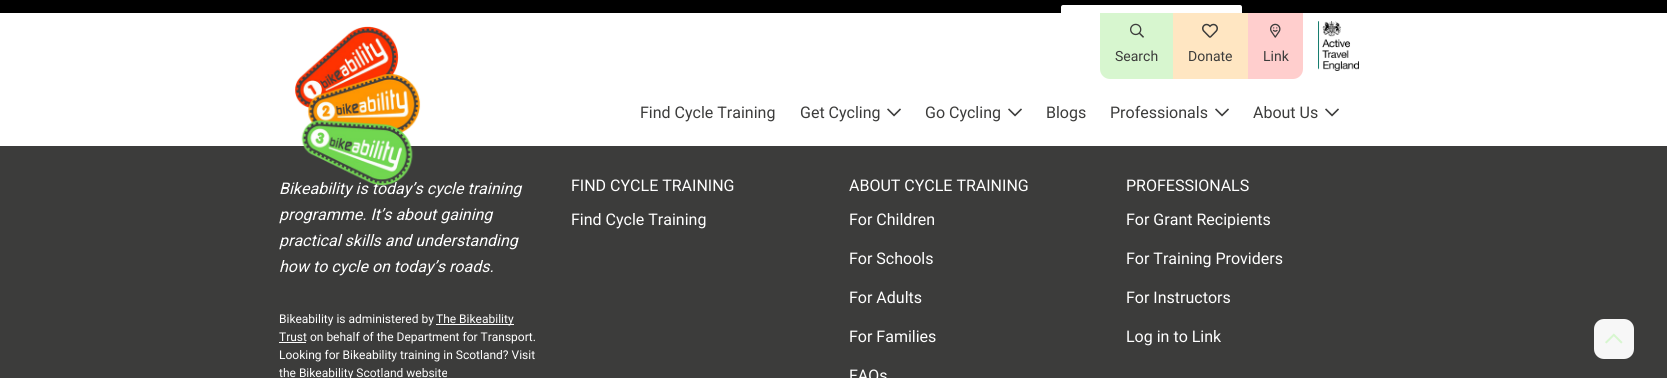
#include <cairo.h>
#include <math.h>
#include <stddef.h>

typedef struct { double x, y; const char *s; } line_t;

static void ink(cairo_t *ctx, unsigned color) {
    cairo_set_source_rgb(ctx, (color >> 16) / 255.0, (color >> 8 & 255) / 255.0, (color & 255) / 255.0);
}

static void round_path(cairo_t *ctx, double x, double y, double w, double h, double r) {
    cairo_new_sub_path(ctx);
    cairo_arc(ctx, x + w - r, y + h - r, r, 0, M_PI / 2);
    cairo_arc(ctx, x + r, y + h - r, r, M_PI / 2, M_PI);
    cairo_arc(ctx, x + r, y + r, r, M_PI, 1.5 * M_PI);
    cairo_arc(ctx, x + w - r, y + r, r, 1.5 * M_PI, 2 * M_PI);
    cairo_close_path(ctx);
}

static void paste(cairo_t *ctx, const char *path, double x, double y, double w, double h) {
    cairo_surface_t *image = cairo_image_surface_create_from_png(path);
    cairo_save(ctx);
    cairo_set_source_surface(ctx, image, x, y);
    cairo_rectangle(ctx, x, y, w, h);
    cairo_fill(ctx);
    cairo_restore(ctx);
    cairo_surface_destroy(image);
}

int main(void) {
    cairo_surface_t *surface = cairo_image_surface_create(CAIRO_FORMAT_RGB24, 1667, 378);
    cairo_t *ctx = cairo_create(surface);
    cairo_font_options_t *options = cairo_font_options_create();
    cairo_font_options_set_hint_metrics(options, CAIRO_HINT_METRICS_OFF);
    cairo_font_options_set_hint_style(options, CAIRO_HINT_STYLE_NONE);
    cairo_set_font_options(ctx, options);
    cairo_set_miter_limit(ctx, 4);
    ink(ctx, 0xFFFFFF);
    cairo_paint(ctx);
    ink(ctx, 0x000000);
    cairo_rectangle(ctx, 0, 0, 1667, 13);
    cairo_fill(ctx);
    ink(ctx, 0xFFFFFF);
    cairo_new_path(ctx);
    cairo_move_to(ctx, 1063, 5);
    cairo_line_to(ctx, 1240, 5);
    cairo_curve_to(ctx, 1241, 5, 1242, 6, 1242, 7);
    cairo_line_to(ctx, 1242, 13);
    cairo_line_to(ctx, 1061, 13);
    cairo_line_to(ctx, 1061, 7);
    cairo_curve_to(ctx, 1061, 6, 1062, 5, 1063, 5);
    cairo_close_path(ctx);
    cairo_fill(ctx);
    ink(ctx, 0x3C3C3B);
    cairo_rectangle(ctx, 0, 146, 1667, 232);
    cairo_fill(ctx);
    cairo_select_font_face(ctx, "Roboto", CAIRO_FONT_SLANT_ITALIC, CAIRO_FONT_WEIGHT_NORMAL);
    cairo_set_font_size(ctx, 16);
    ink(ctx, 0xFFFFFF);
    cairo_move_to(ctx, 279, 194);
    cairo_show_text(ctx, "Bikeability is today’s cycle training");
    paste(ctx, "media/1.png", 295, 26, 126, 160);
    ink(ctx, 0xD7F6CF);
    cairo_new_path(ctx);
    cairo_move_to(ctx, 1100, 13);
    cairo_line_to(ctx, 1173, 13);
    cairo_line_to(ctx, 1173, 79);
    cairo_line_to(ctx, 1110, 79);
    cairo_curve_to(ctx, 1104.5, 79, 1100, 74.5, 1100, 69);
    cairo_close_path(ctx);
    cairo_fill(ctx);
    paste(ctx, "media/2.png", 1130, 23, 14, 15);
    cairo_select_font_face(ctx, "Roboto", CAIRO_FONT_SLANT_NORMAL, CAIRO_FONT_WEIGHT_NORMAL);
    cairo_set_font_size(ctx, 14);
    ink(ctx, 0x3C3C3B);
    cairo_move_to(ctx, 1115, 61);
    cairo_show_text(ctx, "Search");
    ink(ctx, 0xFFE6C2);
    cairo_rectangle(ctx, 1173, 13, 75, 66);
    cairo_fill(ctx);
    paste(ctx, "media/3.png", 1202, 23, 16, 15);
    ink(ctx, 0x3C3C3B);
    cairo_move_to(ctx, 1188, 61);
    cairo_show_text(ctx, "Donate");
    ink(ctx, 0xFFCECD);
    cairo_new_path(ctx);
    cairo_move_to(ctx, 1248, 13);
    cairo_line_to(ctx, 1303, 13);
    cairo_line_to(ctx, 1303, 69);
    cairo_curve_to(ctx, 1303, 74.5, 1298.5, 79, 1293, 79);
    cairo_line_to(ctx, 1248, 79);
    cairo_close_path(ctx);
    cairo_fill(ctx);
    paste(ctx, "media/4.png", 1270, 23, 11, 15);
    ink(ctx, 0x3C3C3B);
    cairo_move_to(ctx, 1263, 61);
    cairo_show_text(ctx, "Link");
    paste(ctx, "media/5.png", 1318, 21, 41, 50);
    cairo_set_font_size(ctx, 16);
    cairo_move_to(ctx, 640, 118);
    cairo_show_text(ctx, "Find Cycle Training");
    cairo_move_to(ctx, 800, 118);
    cairo_show_text(ctx, "Get Cycling");
    paste(ctx, "media/6.png", 887, 108, 14, 9);
    cairo_move_to(ctx, 925, 118);
    cairo_show_text(ctx, "Go Cycling");
    paste(ctx, "media/6.png", 1008, 108, 14, 9);
    cairo_move_to(ctx, 1046, 118);
    cairo_show_text(ctx, "Blogs");
    cairo_move_to(ctx, 1110, 118);
    cairo_show_text(ctx, "Professionals");
    paste(ctx, "media/6.png", 1215, 108, 14, 9);
    cairo_move_to(ctx, 1253, 118);
    cairo_show_text(ctx, "About Us");
    paste(ctx, "media/6.png", 1325, 108, 14, 9);
    cairo_select_font_face(ctx, "Roboto", CAIRO_FONT_SLANT_ITALIC, CAIRO_FONT_WEIGHT_NORMAL);
    ink(ctx, 0xFFFFFF);
    {
        static const line_t items[] = {
            {279, 220, "programme. It’s about gaining"},
            {279, 246, "practical skills and understanding"},
            {279, 272, "how to cycle on today’s roads."},
        };
        for (size_t i = 0; i < sizeof items / sizeof *items; i++) {
            cairo_move_to(ctx, items[i].x, items[i].y);
            cairo_show_text(ctx, items[i].s);
        }
    }
    cairo_select_font_face(ctx, "Roboto", CAIRO_FONT_SLANT_NORMAL, CAIRO_FONT_WEIGHT_NORMAL);
    cairo_set_font_size(ctx, 12);
    cairo_move_to(ctx, 279, 323);
    cairo_show_text(ctx, "Bikeability is administered by");
    cairo_rectangle(ctx, 436, 324, 78, 1);
    cairo_fill(ctx);
    cairo_move_to(ctx, 436, 323);
    cairo_show_text(ctx, "The Bikeability");
    cairo_rectangle(ctx, 279, 342, 27, 1);
    cairo_fill(ctx);
    {
        static const line_t items[] = {
            {279, 341, "Trust on behalf of the Department for Transport."},
            {279, 359, "Looking for Bikeability training in Scotland? Visit"},
            {279, 377, "the Bikeability Scotland website"},
        };
        for (size_t i = 0; i < sizeof items / sizeof *items; i++) {
            cairo_move_to(ctx, items[i].x, items[i].y);
            cairo_show_text(ctx, items[i].s);
        }
    }
    cairo_set_font_size(ctx, 16);
    {
        static const line_t items[] = {
            {571, 191, "FIND CYCLE TRAINING"},
            {571, 225, "Find Cycle Training"},
            {849, 191, "ABOUT CYCLE TRAINING"},
            {849, 225, "For Children"},
            {849, 264, "For Schools"},
            {849, 303, "For Adults"},
            {849, 342, "For Families"},
            {849, 381, "FAQs"},
            {1126, 191, "PROFESSIONALS"},
            {1126, 225, "For Grant Recipients"},
            {1126, 264, "For Training Providers"},
            {1126, 303, "For Instructors"},
            {1126, 342, "Log in to Link"},
        };
        for (size_t i = 0; i < sizeof items / sizeof *items; i++) {
            cairo_move_to(ctx, items[i].x, items[i].y);
            cairo_show_text(ctx, items[i].s);
        }
    }
    ink(ctx, 0xF7F7F7);
    round_path(ctx, 1594, 319, 40, 40, 10);
    cairo_fill(ctx);
    paste(ctx, "media/7.png", 1605, 333, 18, 11);
    cairo_surface_write_to_png(surface, "image.png");
    cairo_font_options_destroy(options);
    cairo_destroy(ctx);
    cairo_surface_destroy(surface);
    return 0;
}
